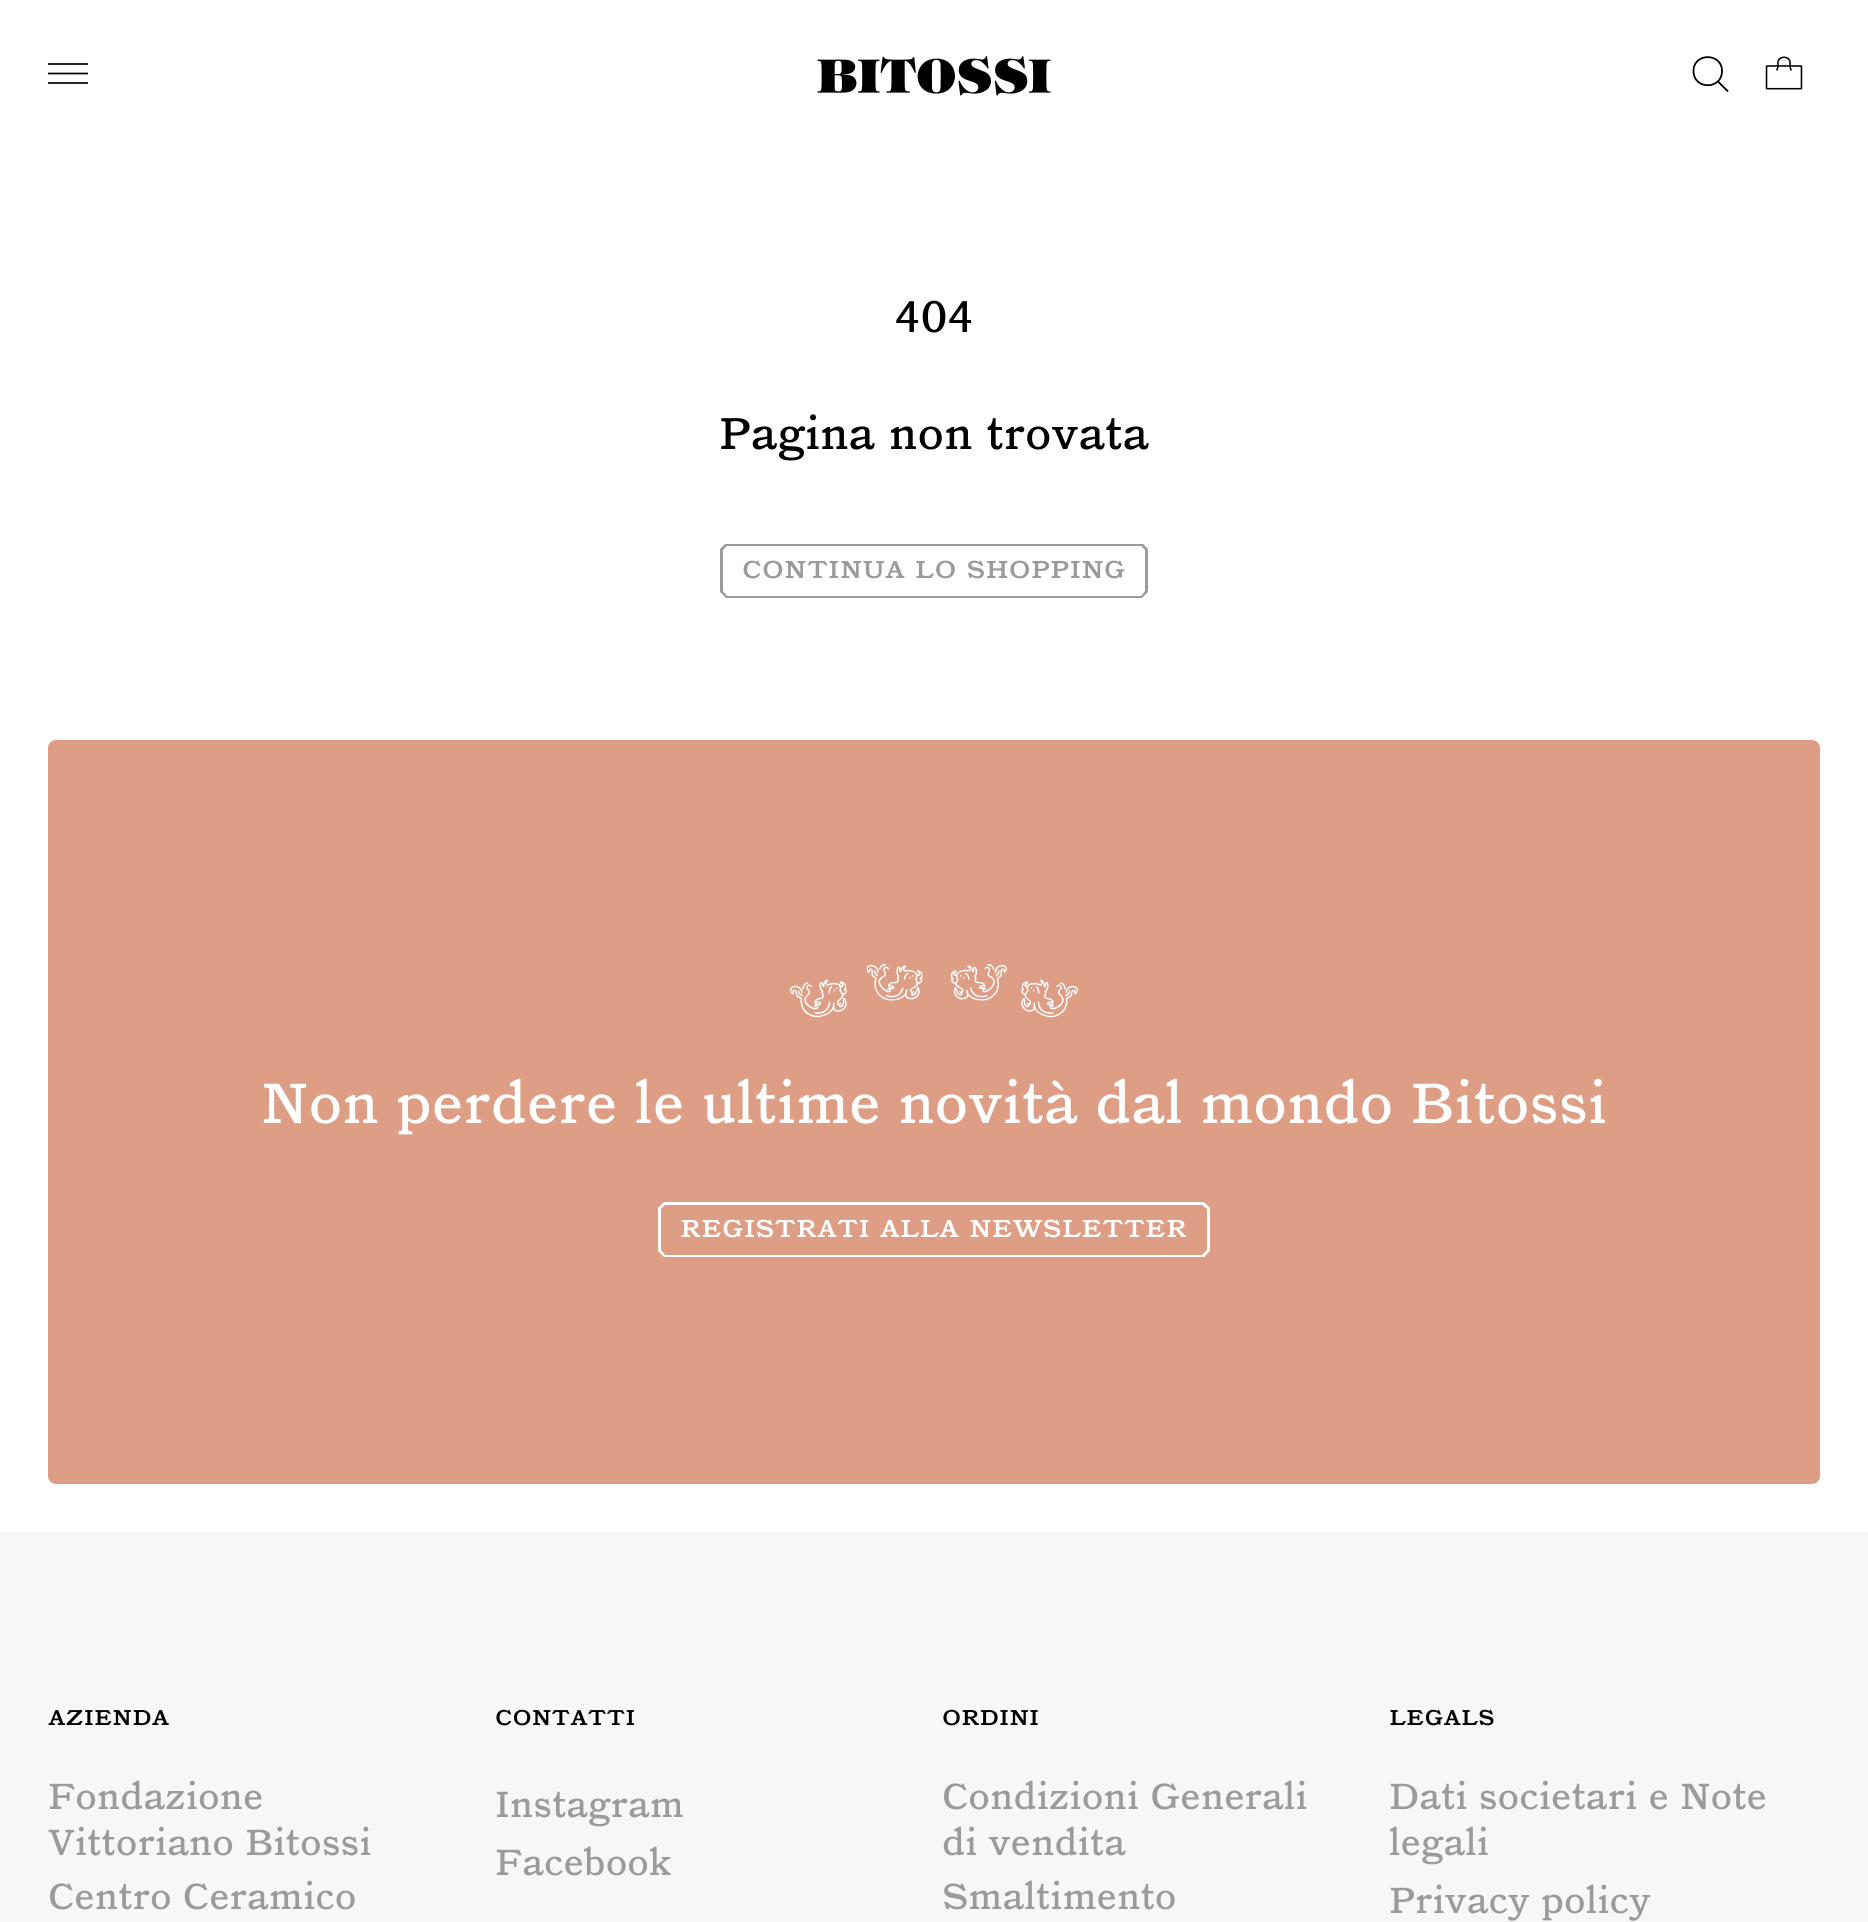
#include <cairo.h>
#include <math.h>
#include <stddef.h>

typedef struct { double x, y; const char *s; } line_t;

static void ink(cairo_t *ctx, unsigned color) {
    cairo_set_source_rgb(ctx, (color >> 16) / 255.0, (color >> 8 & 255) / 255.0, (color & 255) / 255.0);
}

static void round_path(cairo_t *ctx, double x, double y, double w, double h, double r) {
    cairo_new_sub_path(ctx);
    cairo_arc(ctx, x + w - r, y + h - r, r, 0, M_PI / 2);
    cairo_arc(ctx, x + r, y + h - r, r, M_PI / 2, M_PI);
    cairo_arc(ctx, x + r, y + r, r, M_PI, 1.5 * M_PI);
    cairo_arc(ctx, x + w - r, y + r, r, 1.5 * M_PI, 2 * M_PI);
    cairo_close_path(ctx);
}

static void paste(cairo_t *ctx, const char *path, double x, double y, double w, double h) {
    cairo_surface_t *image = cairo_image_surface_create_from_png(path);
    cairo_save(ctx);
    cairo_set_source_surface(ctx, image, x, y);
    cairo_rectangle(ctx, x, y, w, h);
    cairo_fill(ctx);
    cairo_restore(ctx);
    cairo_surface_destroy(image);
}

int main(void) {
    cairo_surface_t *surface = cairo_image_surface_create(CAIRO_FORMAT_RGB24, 1868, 1922);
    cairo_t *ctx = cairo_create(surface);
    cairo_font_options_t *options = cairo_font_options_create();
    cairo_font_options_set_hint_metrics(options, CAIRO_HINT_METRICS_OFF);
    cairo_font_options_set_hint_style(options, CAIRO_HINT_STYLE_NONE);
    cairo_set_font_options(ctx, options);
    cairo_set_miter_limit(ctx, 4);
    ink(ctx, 0xFFFFFF);
    cairo_paint(ctx);
    ink(ctx, 0x262626);
    cairo_rectangle(ctx, 48, 63, 40, 2);
    cairo_fill(ctx);
    cairo_new_path(ctx);
    cairo_move_to(ctx, 48, 73.5);
    cairo_line_to(ctx, 88, 73.5);
    ink(ctx, 0x000000);
    cairo_set_line_width(ctx, 1.7);
    cairo_stroke(ctx);
    ink(ctx, 0x262626);
    cairo_rectangle(ctx, 48, 82, 40, 2);
    cairo_fill(ctx);
    paste(ctx, "media/1.png", 817, 56, 234, 40);
    cairo_new_path(ctx);
    cairo_move_to(ctx, 1722, 71);
    cairo_curve_to(ctx, 1722, 90, 1693.5, 90, 1693.5, 71);
    cairo_curve_to(ctx, 1693.5, 52.5, 1722, 52.5, 1722, 71);
    cairo_close_path(ctx);
    cairo_move_to(ctx, 1718.5, 82);
    cairo_line_to(ctx, 1728, 91.5);
    ink(ctx, 0x000000);
    cairo_set_line_width(ctx, 1.8);
    cairo_stroke(ctx);
    paste(ctx, "media/2.png", 1765, 56, 38, 34);
    cairo_select_font_face(ctx, "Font", CAIRO_FONT_SLANT_NORMAL, CAIRO_FONT_WEIGHT_NORMAL);
    cairo_set_font_size(ctx, 44);
    cairo_move_to(ctx, 895, 332);
    cairo_show_text(ctx, "404");
    cairo_move_to(ctx, 719, 449);
    cairo_show_text(ctx, "Pagina non trovata");
    ink(ctx, 0x9B9B9B);
    cairo_set_fill_rule(ctx, CAIRO_FILL_RULE_EVEN_ODD);
    cairo_new_path(ctx);
    cairo_move_to(ctx, 720, 549);
    cairo_line_to(ctx, 720, 592);
    cairo_line_to(ctx, 726, 598);
    cairo_line_to(ctx, 1142, 598);
    cairo_line_to(ctx, 1148, 592);
    cairo_line_to(ctx, 1148, 549);
    cairo_line_to(ctx, 1143, 544);
    cairo_line_to(ctx, 725, 544);
    cairo_close_path(ctx);
    cairo_move_to(ctx, 723, 591);
    cairo_line_to(ctx, 723, 550);
    cairo_line_to(ctx, 727, 546);
    cairo_line_to(ctx, 1141, 546);
    cairo_line_to(ctx, 1145, 550);
    cairo_line_to(ctx, 1145, 591);
    cairo_line_to(ctx, 1141, 596);
    cairo_line_to(ctx, 727, 596);
    cairo_close_path(ctx);
    cairo_fill(ctx);
    cairo_select_font_face(ctx, "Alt", CAIRO_FONT_SLANT_NORMAL, CAIRO_FONT_WEIGHT_NORMAL);
    cairo_set_font_size(ctx, 32);
    cairo_move_to(ctx, 742, 578);
    cairo_show_text(ctx, "Continua lo shopping");
    ink(ctx, 0xDD9E85);
    round_path(ctx, 48, 740, 1772, 744, 8);
    cairo_fill(ctx);
    paste(ctx, "media/3.png", 790, 964, 288, 54);
    cairo_select_font_face(ctx, "Font", CAIRO_FONT_SLANT_NORMAL, CAIRO_FONT_WEIGHT_NORMAL);
    cairo_set_font_size(ctx, 56);
    ink(ctx, 0xFFFFFF);
    cairo_move_to(ctx, 261, 1123);
    cairo_show_text(ctx, "Non perdere le ultime novità dal mondo Bitossi");
    cairo_new_path(ctx);
    cairo_move_to(ctx, 658, 1208);
    cairo_line_to(ctx, 658, 1251);
    cairo_line_to(ctx, 664, 1257);
    cairo_line_to(ctx, 1204, 1257);
    cairo_line_to(ctx, 1210, 1251);
    cairo_line_to(ctx, 1210, 1208);
    cairo_line_to(ctx, 1204, 1202);
    cairo_line_to(ctx, 664, 1202);
    cairo_close_path(ctx);
    cairo_move_to(ctx, 661, 1250);
    cairo_line_to(ctx, 661, 1209);
    cairo_line_to(ctx, 665, 1205);
    cairo_line_to(ctx, 1202, 1205);
    cairo_line_to(ctx, 1207, 1209);
    cairo_line_to(ctx, 1207, 1250);
    cairo_line_to(ctx, 1202, 1255);
    cairo_line_to(ctx, 665, 1255);
    cairo_close_path(ctx);
    cairo_fill(ctx);
    cairo_select_font_face(ctx, "Alt", CAIRO_FONT_SLANT_NORMAL, CAIRO_FONT_WEIGHT_NORMAL);
    cairo_set_font_size(ctx, 32);
    cairo_move_to(ctx, 680, 1237);
    cairo_show_text(ctx, "Registrati alla newsletter");
    ink(ctx, 0xF7F7F7);
    cairo_rectangle(ctx, 0, 1532, 1868, 390);
    cairo_fill(ctx);
    cairo_set_font_size(ctx, 28);
    ink(ctx, 0x000000);
    cairo_move_to(ctx, 48, 1725);
    cairo_show_text(ctx, "Azienda");
    cairo_select_font_face(ctx, "Font", CAIRO_FONT_SLANT_NORMAL, CAIRO_FONT_WEIGHT_NORMAL);
    cairo_set_font_size(ctx, 36);
    ink(ctx, 0x9B9B9B);
    {
        static const line_t items[] = {
            {48, 1809, "Fondazione"},
            {48, 1855, "Vittoriano Bitossi"},
            {48, 1909, "Centro Ceramico"},
        };
        for (size_t i = 0; i < sizeof items / sizeof *items; i++) {
            cairo_move_to(ctx, items[i].x, items[i].y);
            cairo_show_text(ctx, items[i].s);
        }
    }
    cairo_select_font_face(ctx, "Alt", CAIRO_FONT_SLANT_NORMAL, CAIRO_FONT_WEIGHT_NORMAL);
    cairo_set_font_size(ctx, 28);
    ink(ctx, 0x000000);
    cairo_move_to(ctx, 495, 1725);
    cairo_show_text(ctx, "Contatti");
    cairo_select_font_face(ctx, "Font", CAIRO_FONT_SLANT_NORMAL, CAIRO_FONT_WEIGHT_NORMAL);
    cairo_set_font_size(ctx, 36);
    ink(ctx, 0x9B9B9B);
    cairo_move_to(ctx, 495, 1817);
    cairo_show_text(ctx, "Instagram");
    cairo_move_to(ctx, 495, 1875);
    cairo_show_text(ctx, "Facebook");
    cairo_select_font_face(ctx, "Alt", CAIRO_FONT_SLANT_NORMAL, CAIRO_FONT_WEIGHT_NORMAL);
    cairo_set_font_size(ctx, 28);
    ink(ctx, 0x000000);
    cairo_move_to(ctx, 942, 1725);
    cairo_show_text(ctx, "Ordini");
    cairo_select_font_face(ctx, "Font", CAIRO_FONT_SLANT_NORMAL, CAIRO_FONT_WEIGHT_NORMAL);
    cairo_set_font_size(ctx, 36);
    ink(ctx, 0x9B9B9B);
    {
        static const line_t items[] = {
            {942, 1809, "Condizioni Generali"},
            {942, 1855, "di vendita"},
            {942, 1909, "Smaltimento"},
        };
        for (size_t i = 0; i < sizeof items / sizeof *items; i++) {
            cairo_move_to(ctx, items[i].x, items[i].y);
            cairo_show_text(ctx, items[i].s);
        }
    }
    cairo_select_font_face(ctx, "Alt", CAIRO_FONT_SLANT_NORMAL, CAIRO_FONT_WEIGHT_NORMAL);
    cairo_set_font_size(ctx, 28);
    ink(ctx, 0x000000);
    cairo_move_to(ctx, 1389, 1725);
    cairo_show_text(ctx, "Legals");
    cairo_select_font_face(ctx, "Font", CAIRO_FONT_SLANT_NORMAL, CAIRO_FONT_WEIGHT_NORMAL);
    cairo_set_font_size(ctx, 36);
    ink(ctx, 0x9B9B9B);
    {
        static const line_t items[] = {
            {1389, 1809, "Dati societari e Note"},
            {1389, 1855, "legali"},
            {1389, 1913, "Privacy policy"},
        };
        for (size_t i = 0; i < sizeof items / sizeof *items; i++) {
            cairo_move_to(ctx, items[i].x, items[i].y);
            cairo_show_text(ctx, items[i].s);
        }
    }
    cairo_surface_write_to_png(surface, "image.png");
    cairo_font_options_destroy(options);
    cairo_destroy(ctx);
    cairo_surface_destroy(surface);
    return 0;
}
